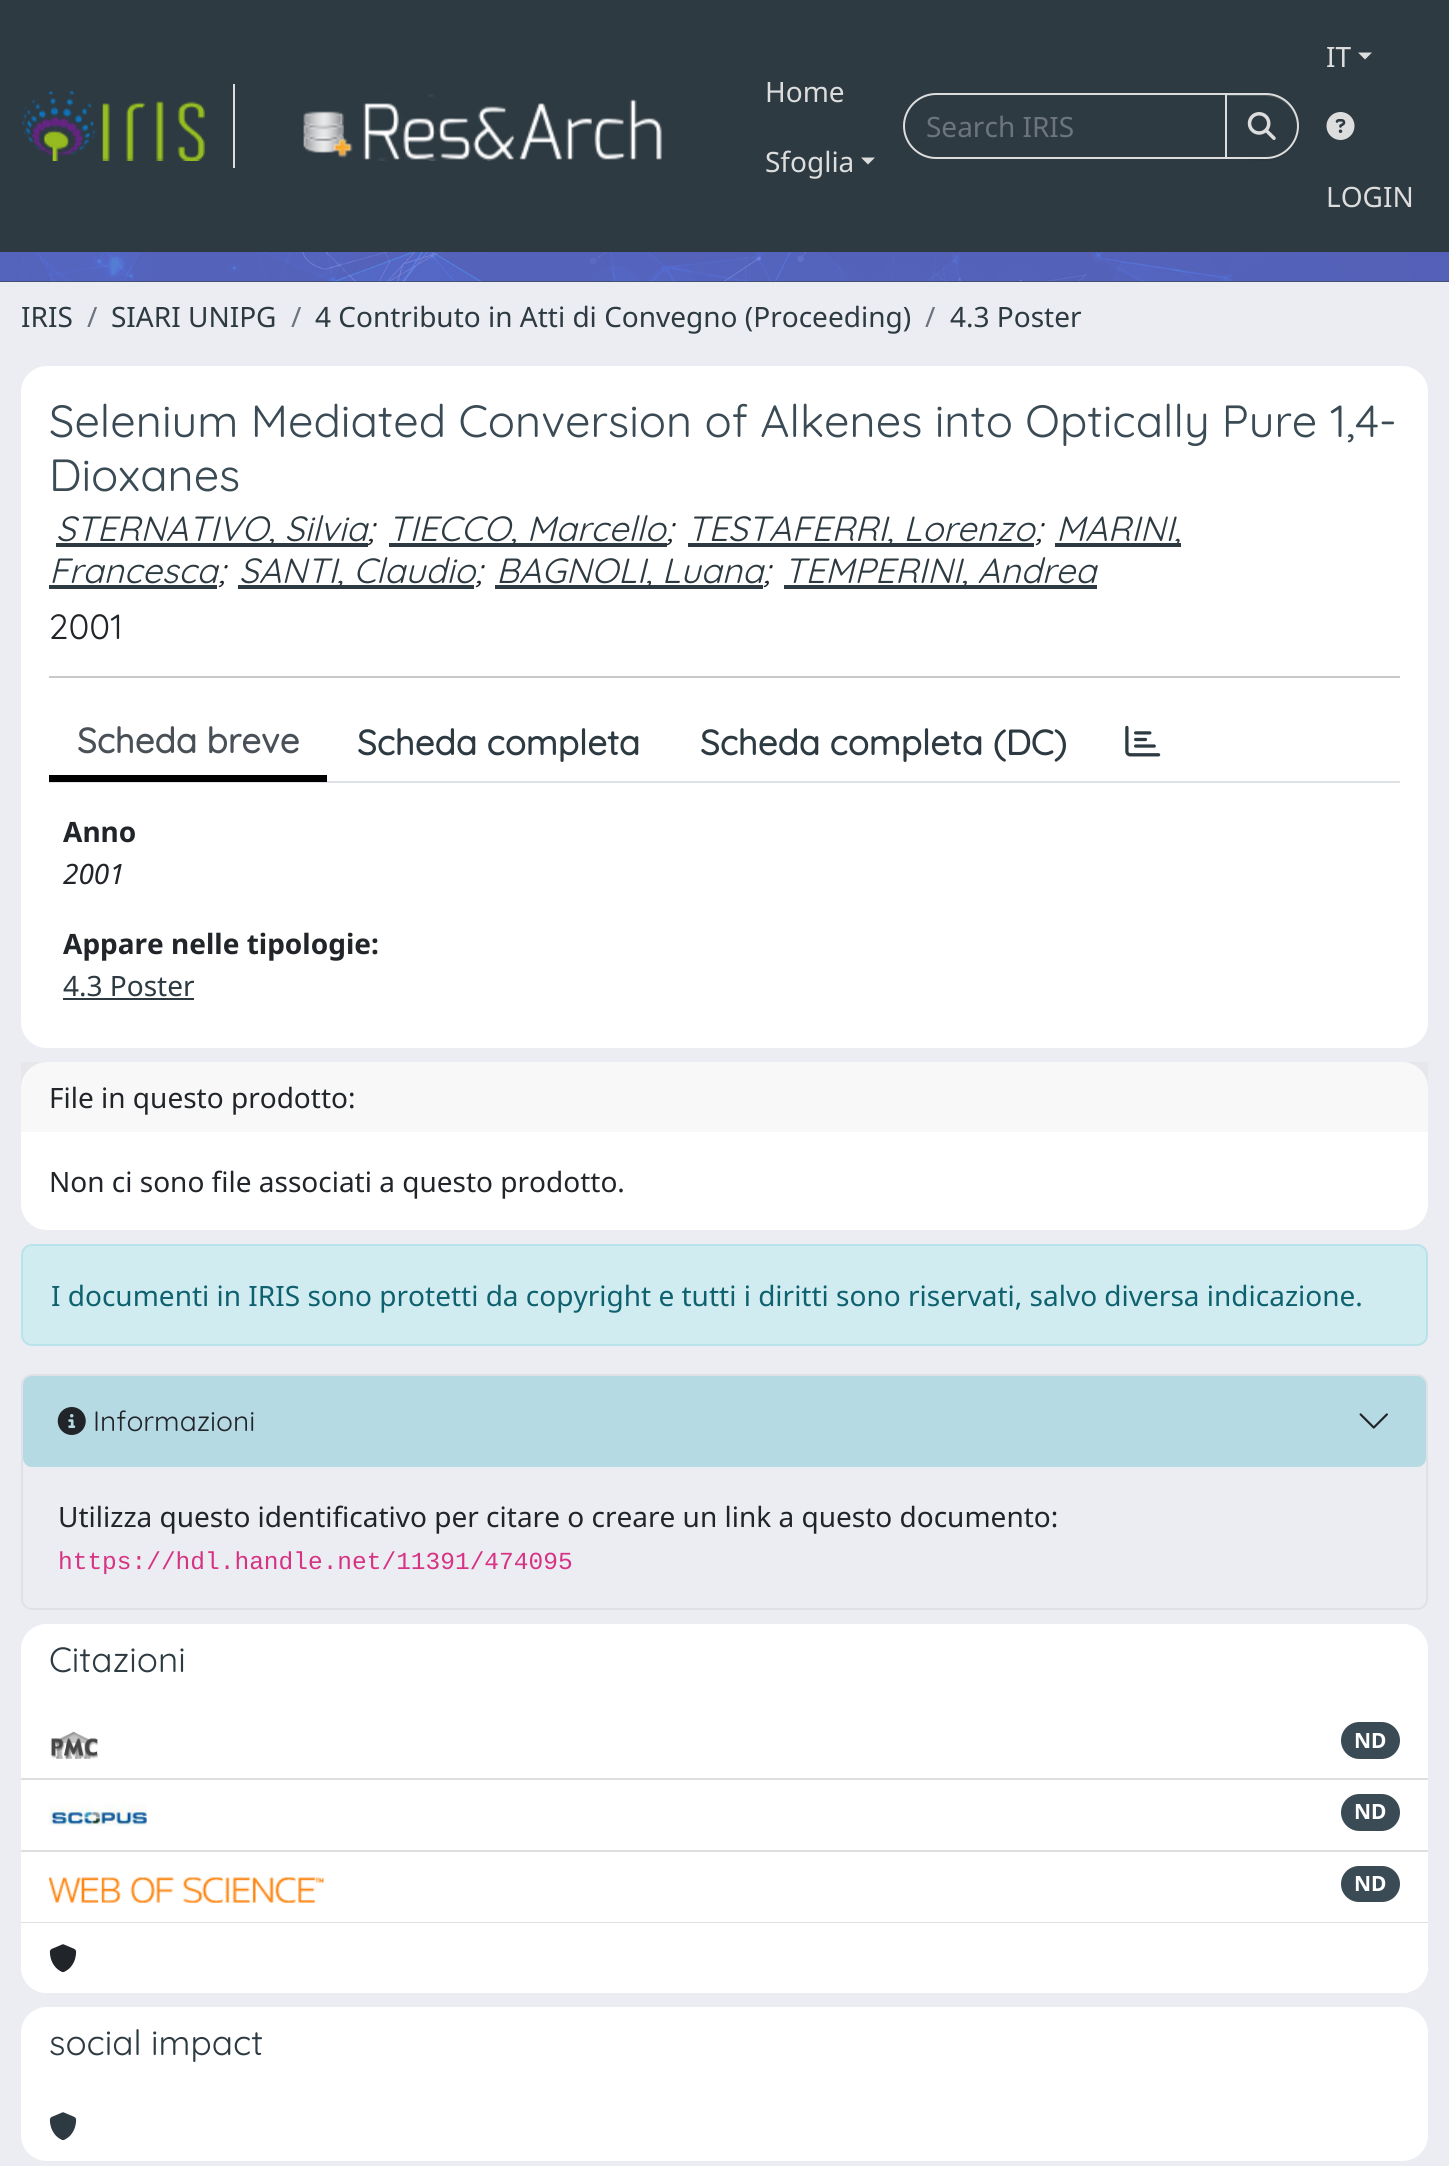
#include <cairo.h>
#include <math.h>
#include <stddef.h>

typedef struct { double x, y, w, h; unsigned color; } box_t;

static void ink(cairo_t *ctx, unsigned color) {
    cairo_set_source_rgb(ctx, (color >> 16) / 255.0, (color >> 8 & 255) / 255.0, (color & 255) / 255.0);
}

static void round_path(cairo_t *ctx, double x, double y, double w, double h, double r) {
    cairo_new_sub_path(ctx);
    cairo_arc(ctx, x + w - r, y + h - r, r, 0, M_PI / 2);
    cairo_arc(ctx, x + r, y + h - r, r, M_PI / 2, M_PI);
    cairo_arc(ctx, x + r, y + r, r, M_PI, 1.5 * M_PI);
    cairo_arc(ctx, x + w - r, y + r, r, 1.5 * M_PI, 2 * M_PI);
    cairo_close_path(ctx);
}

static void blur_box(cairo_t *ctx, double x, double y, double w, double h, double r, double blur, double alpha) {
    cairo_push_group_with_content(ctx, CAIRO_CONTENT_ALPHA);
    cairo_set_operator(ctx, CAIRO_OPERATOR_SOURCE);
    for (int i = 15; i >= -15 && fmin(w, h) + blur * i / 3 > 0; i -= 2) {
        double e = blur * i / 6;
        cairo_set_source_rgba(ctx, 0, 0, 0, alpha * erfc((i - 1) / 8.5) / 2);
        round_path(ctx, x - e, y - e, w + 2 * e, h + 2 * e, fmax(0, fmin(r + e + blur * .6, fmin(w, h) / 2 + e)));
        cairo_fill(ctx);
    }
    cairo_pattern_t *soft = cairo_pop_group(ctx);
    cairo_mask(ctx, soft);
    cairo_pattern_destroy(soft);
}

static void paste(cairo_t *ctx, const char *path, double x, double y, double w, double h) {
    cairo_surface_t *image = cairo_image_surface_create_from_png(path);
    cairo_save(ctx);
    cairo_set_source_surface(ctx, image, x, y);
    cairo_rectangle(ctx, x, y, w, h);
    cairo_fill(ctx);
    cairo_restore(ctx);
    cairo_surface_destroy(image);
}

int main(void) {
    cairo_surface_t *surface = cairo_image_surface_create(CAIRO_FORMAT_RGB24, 1449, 2166);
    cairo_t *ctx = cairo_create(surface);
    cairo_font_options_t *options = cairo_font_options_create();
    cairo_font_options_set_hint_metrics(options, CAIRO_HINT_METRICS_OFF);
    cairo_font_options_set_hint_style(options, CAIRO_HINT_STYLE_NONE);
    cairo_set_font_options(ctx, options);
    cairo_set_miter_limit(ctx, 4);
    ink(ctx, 0xECEDF2);
    cairo_paint(ctx);
    ink(ctx, 0x2D3A42);
    cairo_rectangle(ctx, 0, 0, 1449, 252);
    cairo_fill(ctx);
    ink(ctx, 0xDDDDDD);
    cairo_rectangle(ctx, 233, 84, 2, 84);
    cairo_fill(ctx);
    paste(ctx, "media/1.png", 21, 91, 184, 70);
    paste(ctx, "media/2.png", 303, 94, 359, 67);
    cairo_select_font_face(ctx, "Noto Sans", CAIRO_FONT_SLANT_NORMAL, CAIRO_FONT_WEIGHT_NORMAL);
    cairo_set_font_size(ctx, 28);
    cairo_move_to(ctx, 765, 102);
    cairo_show_text(ctx, "Home");
    cairo_move_to(ctx, 765, 172);
    cairo_show_text(ctx, "Sfoglia");
    cairo_new_path(ctx);
    cairo_move_to(ctx, 861, 157.5);
    cairo_line_to(ctx, 875, 157.5);
    cairo_line_to(ctx, 868, 164.5);
    cairo_close_path(ctx);
    cairo_fill(ctx);
    cairo_new_path(ctx);
    cairo_move_to(ctx, 936, 94);
    cairo_line_to(ctx, 1226, 94);
    cairo_line_to(ctx, 1226, 158);
    cairo_line_to(ctx, 936, 158);
    cairo_curve_to(ctx, 918.5, 158, 904, 143.5, 904, 126);
    cairo_curve_to(ctx, 904, 108.5, 918.5, 94, 936, 94);
    cairo_close_path(ctx);
    cairo_stroke(ctx);
    ink(ctx, 0x6C757D);
    cairo_move_to(ctx, 926, 137);
    cairo_show_text(ctx, "Search IRIS");
    ink(ctx, 0x000000);
    blur_box(ctx, 1225, 95, 74, 66, 33, 1, 0.07);
    ink(ctx, 0x2D3A42);
    cairo_new_path(ctx);
    cairo_move_to(ctx, 1225, 93);
    cairo_line_to(ctx, 1266, 93);
    cairo_curve_to(ctx, 1284, 93, 1299, 108, 1299, 126);
    cairo_curve_to(ctx, 1299, 144, 1284, 159, 1266, 159);
    cairo_line_to(ctx, 1225, 159);
    cairo_close_path(ctx);
    cairo_fill(ctx);
    ink(ctx, 0x4D585E);
    cairo_new_path(ctx);
    cairo_move_to(ctx, 1227, 96);
    cairo_line_to(ctx, 1265, 96);
    cairo_curve_to(ctx, 1283, 96, 1297, 110, 1297, 127);
    cairo_line_to(ctx, 1297, 126);
    cairo_curve_to(ctx, 1297, 109, 1283, 95, 1266, 95);
    cairo_line_to(ctx, 1227, 95);
    cairo_close_path(ctx);
    cairo_fill(ctx);
    cairo_new_path(ctx);
    cairo_move_to(ctx, 1226, 94);
    cairo_line_to(ctx, 1266, 94);
    cairo_curve_to(ctx, 1283.5, 94, 1298, 108.5, 1298, 126);
    cairo_curve_to(ctx, 1298, 143.5, 1283.5, 158, 1266, 158);
    cairo_line_to(ctx, 1226, 158);
    cairo_close_path(ctx);
    ink(ctx, 0xDDDDDD);
    cairo_stroke(ctx);
    paste(ctx, "media/3.png", 1247, 112, 29, 28);
    cairo_move_to(ctx, 1326, 67);
    cairo_show_text(ctx, "IT");
    cairo_new_path(ctx);
    cairo_move_to(ctx, 1358, 52.5);
    cairo_line_to(ctx, 1372, 52.5);
    cairo_line_to(ctx, 1365, 59.5);
    cairo_close_path(ctx);
    cairo_fill(ctx);
    paste(ctx, "media/4.png", 1326, 112, 29, 28);
    cairo_move_to(ctx, 1326, 207);
    cairo_show_text(ctx, "LOGIN");
    ink(ctx, 0x3A4B55);
    cairo_rectangle(ctx, 0, 252, 1449, 30);
    cairo_fill(ctx);
    paste(ctx, "media/5.png", 0, 252, 1449, 30);
    ink(ctx, 0x2D3A42);
    cairo_move_to(ctx, 21, 327);
    cairo_show_text(ctx, "IRIS");
    ink(ctx, 0x6C757D);
    cairo_move_to(ctx, 87, 327);
    cairo_show_text(ctx, "/");
    ink(ctx, 0x2D3A42);
    cairo_move_to(ctx, 111, 327);
    cairo_show_text(ctx, "SIARI UNIPG");
    ink(ctx, 0x6C757D);
    cairo_move_to(ctx, 291, 327);
    cairo_show_text(ctx, "/");
    ink(ctx, 0x2D3A42);
    cairo_move_to(ctx, 315, 327);
    cairo_show_text(ctx, "4 Contributo in Atti di Convegno (Proceeding)");
    ink(ctx, 0x6C757D);
    cairo_move_to(ctx, 925, 327);
    cairo_show_text(ctx, "/");
    ink(ctx, 0x2D3A42);
    cairo_move_to(ctx, 950, 327);
    cairo_show_text(ctx, "4.3 Poster");
    ink(ctx, 0xFFFFFF);
    round_path(ctx, 21, 366, 1407, 682, 26);
    cairo_fill(ctx);
    cairo_select_font_face(ctx, "Quicksand", CAIRO_FONT_SLANT_NORMAL, CAIRO_FONT_WEIGHT_NORMAL);
    cairo_set_font_size(ctx, 45.1);
    ink(ctx, 0x3A4B55);
    cairo_move_to(ctx, 49, 437);
    cairo_show_text(ctx, "Selenium Mediated Conversion of Alkenes into Optically Pure 1,4-");
    cairo_move_to(ctx, 49, 491);
    cairo_show_text(ctx, "Dioxanes");
    ink(ctx, 0x2D3A42);
    cairo_rectangle(ctx, 56, 543, 312, 4);
    cairo_fill(ctx);
    cairo_select_font_face(ctx, "Quicksand", CAIRO_FONT_SLANT_ITALIC, CAIRO_FONT_WEIGHT_NORMAL);
    cairo_set_font_size(ctx, 35);
    cairo_move_to(ctx, 56, 541);
    cairo_show_text(ctx, "STERNATIVO, Silvia");
    ink(ctx, 0x212529);
    cairo_move_to(ctx, 367, 541);
    cairo_show_text(ctx, ";");
    ink(ctx, 0x2D3A42);
    cairo_rectangle(ctx, 389, 543, 278, 4);
    cairo_fill(ctx);
    cairo_move_to(ctx, 388, 541);
    cairo_show_text(ctx, "TIECCO, Marcello");
    ink(ctx, 0x212529);
    cairo_move_to(ctx, 666, 541);
    cairo_show_text(ctx, ";");
    ink(ctx, 0x2D3A42);
    cairo_rectangle(ctx, 688, 543, 346, 4);
    cairo_fill(ctx);
    cairo_move_to(ctx, 687, 541);
    cairo_show_text(ctx, "TESTAFERRI, Lorenzo");
    ink(ctx, 0x212529);
    cairo_move_to(ctx, 1035, 541);
    cairo_show_text(ctx, ";");
    ink(ctx, 0x2D3A42);
    cairo_rectangle(ctx, 1055, 543, 126, 4);
    cairo_fill(ctx);
    cairo_move_to(ctx, 1056, 541);
    cairo_show_text(ctx, "MARINI,");
    cairo_move_to(ctx, 49, 583);
    cairo_show_text(ctx, "Francesca");
    ink(ctx, 0x212529);
    cairo_move_to(ctx, 218, 583);
    cairo_show_text(ctx, ";");
    ink(ctx, 0x2D3A42);
    cairo_rectangle(ctx, 49, 585, 168, 4);
    cairo_fill(ctx);
    cairo_rectangle(ctx, 238, 585, 236, 4);
    cairo_fill(ctx);
    cairo_move_to(ctx, 239, 583);
    cairo_show_text(ctx, "SANTI, Claudio");
    ink(ctx, 0x212529);
    cairo_move_to(ctx, 475, 583);
    cairo_show_text(ctx, ";");
    ink(ctx, 0x2D3A42);
    cairo_rectangle(ctx, 495, 585, 268, 4);
    cairo_fill(ctx);
    cairo_move_to(ctx, 496, 583);
    cairo_show_text(ctx, "BAGNOLI, Luana");
    ink(ctx, 0x212529);
    cairo_move_to(ctx, 763, 583);
    cairo_show_text(ctx, ";");
    ink(ctx, 0x2D3A42);
    cairo_rectangle(ctx, 784, 585, 313, 4);
    cairo_fill(ctx);
    cairo_move_to(ctx, 784, 583);
    cairo_show_text(ctx, "TEMPERINI, Andrea");
    cairo_select_font_face(ctx, "Quicksand", CAIRO_FONT_SLANT_NORMAL, CAIRO_FONT_WEIGHT_NORMAL);
    ink(ctx, 0x212529);
    cairo_move_to(ctx, 49, 639);
    cairo_show_text(ctx, "2001");
    {
        static const box_t items[] = {
            {49, 676, 1351, 2, 0xC8C9CA},
            {49, 781, 1351, 2, 0xDEE2E6},
            {49, 775, 278, 7, 0x000000},
        };
        for (size_t i = 0; i < sizeof items / sizeof *items; i++) {
            ink(ctx, items[i].color);
            cairo_rectangle(ctx, items[i].x, items[i].y, items[i].w, items[i].h);
            cairo_fill(ctx);
        }
    }
    cairo_select_font_face(ctx, "Quicksand", CAIRO_FONT_SLANT_NORMAL, CAIRO_FONT_WEIGHT_BOLD);
    ink(ctx, 0x495057);
    cairo_move_to(ctx, 77, 753);
    cairo_show_text(ctx, "Scheda breve");
    ink(ctx, 0x2D3A42);
    cairo_move_to(ctx, 357, 755);
    cairo_show_text(ctx, "Scheda completa");
    cairo_move_to(ctx, 700, 755);
    cairo_show_text(ctx, "Scheda completa (DC)");
    paste(ctx, "media/6.png", 1125, 725, 36, 32);
    cairo_select_font_face(ctx, "Noto Sans", CAIRO_FONT_SLANT_NORMAL, CAIRO_FONT_WEIGHT_BOLD);
    cairo_set_font_size(ctx, 28);
    ink(ctx, 0x212529);
    cairo_move_to(ctx, 63, 842);
    cairo_show_text(ctx, "Anno");
    cairo_select_font_face(ctx, "Noto Sans", CAIRO_FONT_SLANT_ITALIC, CAIRO_FONT_WEIGHT_NORMAL);
    cairo_move_to(ctx, 63, 884);
    cairo_show_text(ctx, "2001");
    cairo_select_font_face(ctx, "Noto Sans", CAIRO_FONT_SLANT_NORMAL, CAIRO_FONT_WEIGHT_BOLD);
    cairo_move_to(ctx, 63, 954);
    cairo_show_text(ctx, "Appare nelle tipologie:");
    cairo_select_font_face(ctx, "Noto Sans", CAIRO_FONT_SLANT_NORMAL, CAIRO_FONT_WEIGHT_NORMAL);
    ink(ctx, 0x2D3A42);
    cairo_move_to(ctx, 63, 996);
    cairo_show_text(ctx, "4.3 Poster");
    cairo_rectangle(ctx, 63, 998, 131, 2);
    cairo_fill(ctx);
    ink(ctx, 0xFFFFFF);
    round_path(ctx, 21, 1062, 1407, 168, 26);
    cairo_fill(ctx);
    cairo_set_source_rgba(ctx, 0, 0, 0, 0.03);
    cairo_rectangle(ctx, 21, 1062, 1407, 70);
    cairo_fill(ctx);
    ink(ctx, 0x212529);
    cairo_move_to(ctx, 49, 1108);
    cairo_show_text(ctx, "File in questo prodotto:");
    cairo_move_to(ctx, 49, 1192);
    cairo_show_text(ctx, "Non ci sono file associati a questo prodotto.");
    ink(ctx, 0xD1ECF1);
    round_path(ctx, 22, 1245, 1405, 100, 10);
    cairo_fill_preserve(ctx);
    ink(ctx, 0xB9E3EA);
    cairo_stroke(ctx);
    ink(ctx, 0x0E616E);
    cairo_move_to(ctx, 51, 1306);
    cairo_show_text(ctx, "I documenti in IRIS sono protetti da copyright e tutti i diritti sono riservati, salvo diversa indicazione.");
    round_path(ctx, 22, 1375, 1405, 234, 10);
    ink(ctx, 0xDEE2E6);
    cairo_stroke(ctx);
    cairo_set_source_rgba(ctx, 0.09, 0.635, 0.722, 0.25);
    round_path(ctx, 23, 1376, 1403, 91, 9);
    cairo_fill(ctx);
    paste(ctx, "media/7.png", 57, 1407, 29, 28);
    cairo_select_font_face(ctx, "Quicksand", CAIRO_FONT_SLANT_NORMAL, CAIRO_FONT_WEIGHT_NORMAL);
    ink(ctx, 0x212529);
    cairo_move_to(ctx, 93, 1431);
    cairo_show_text(ctx, "Informazioni");
    paste(ctx, "media/8.png", 1359, 1413, 29, 16);
    cairo_select_font_face(ctx, "Noto Sans", CAIRO_FONT_SLANT_NORMAL, CAIRO_FONT_WEIGHT_NORMAL);
    cairo_move_to(ctx, 58, 1527);
    cairo_show_text(ctx, "Utilizza questo identificativo per citare o creare un link a questo documento:");
    cairo_select_font_face(ctx, "Liberation Mono", CAIRO_FONT_SLANT_NORMAL, CAIRO_FONT_WEIGHT_NORMAL);
    cairo_set_font_size(ctx, 24.5);
    ink(ctx, 0xD63384);
    cairo_move_to(ctx, 58, 1569);
    cairo_show_text(ctx, "https://hdl.handle.net/11391/474095");
    ink(ctx, 0xFFFFFF);
    round_path(ctx, 21, 1624, 1407, 369, 26);
    cairo_fill(ctx);
    cairo_new_path(ctx);
    cairo_move_to(ctx, 47, 1624);
    cairo_line_to(ctx, 1402, 1624);
    cairo_curve_to(ctx, 1416.5, 1624, 1428, 1635.5, 1428, 1650);
    cairo_line_to(ctx, 1428, 1708);
    cairo_line_to(ctx, 21, 1708);
    cairo_line_to(ctx, 21, 1650);
    cairo_curve_to(ctx, 21, 1635.5, 32.5, 1624, 47, 1624);
    cairo_close_path(ctx);
    cairo_fill(ctx);
    cairo_select_font_face(ctx, "Quicksand", CAIRO_FONT_SLANT_NORMAL, CAIRO_FONT_WEIGHT_NORMAL);
    cairo_set_font_size(ctx, 35);
    ink(ctx, 0x2D3A42);
    cairo_move_to(ctx, 49, 1672);
    cairo_show_text(ctx, "Citazioni");
    ink(ctx, 0xDFDFDF);
    cairo_rectangle(ctx, 21, 1778, 1407, 2);
    cairo_fill(ctx);
    paste(ctx, "media/9.png", 50, 1731, 48, 28);
    ink(ctx, 0x3A4B55);
    round_path(ctx, 1341, 1722, 59, 37, 18.5);
    cairo_fill(ctx);
    cairo_select_font_face(ctx, "Noto Sans", CAIRO_FONT_SLANT_NORMAL, CAIRO_FONT_WEIGHT_BOLD);
    cairo_set_font_size(ctx, 21);
    ink(ctx, 0xFFFFFF);
    cairo_move_to(ctx, 1354, 1748);
    cairo_show_text(ctx, "ND");
    ink(ctx, 0xDFDFDF);
    cairo_rectangle(ctx, 21, 1850, 1407, 2);
    cairo_fill(ctx);
    paste(ctx, "media/10.png", 49, 1803, 98, 23);
    ink(ctx, 0x3A4B55);
    round_path(ctx, 1341, 1794, 59, 37, 18.5);
    cairo_fill(ctx);
    ink(ctx, 0xFFFFFF);
    cairo_move_to(ctx, 1354, 1819);
    cairo_show_text(ctx, "ND");
    ink(ctx, 0xDFDFDF);
    cairo_rectangle(ctx, 21, 1922, 1407, 1);
    cairo_fill(ctx);
    paste(ctx, "media/11.png", 49, 1877, 275, 26);
    ink(ctx, 0x3A4B55);
    round_path(ctx, 1341, 1866, 59, 36, 18);
    cairo_fill(ctx);
    ink(ctx, 0xFFFFFF);
    cairo_move_to(ctx, 1354, 1891);
    cairo_show_text(ctx, "ND");
    cairo_new_path(ctx);
    cairo_move_to(ctx, 21, 1923);
    cairo_line_to(ctx, 1428, 1923);
    cairo_line_to(ctx, 1428, 1967);
    cairo_curve_to(ctx, 1428, 1981.5, 1416.5, 1993, 1402, 1993);
    cairo_line_to(ctx, 47, 1993);
    cairo_curve_to(ctx, 32.5, 1993, 21, 1981.5, 21, 1967);
    cairo_close_path(ctx);
    cairo_fill(ctx);
    paste(ctx, "media/12.png", 49, 1944, 28, 29);
    cairo_new_path(ctx);
    cairo_move_to(ctx, 47, 2007);
    cairo_line_to(ctx, 1402, 2007);
    cairo_curve_to(ctx, 1416.5, 2007, 1428, 2018.5, 1428, 2033);
    cairo_line_to(ctx, 1428, 2091);
    cairo_line_to(ctx, 21, 2091);
    cairo_line_to(ctx, 21, 2033);
    cairo_curve_to(ctx, 21, 2018.5, 32.5, 2007, 47, 2007);
    cairo_close_path(ctx);
    cairo_fill(ctx);
    cairo_select_font_face(ctx, "Quicksand", CAIRO_FONT_SLANT_NORMAL, CAIRO_FONT_WEIGHT_NORMAL);
    cairo_set_font_size(ctx, 35);
    ink(ctx, 0x2D3A42);
    cairo_move_to(ctx, 49, 2055);
    cairo_show_text(ctx, "social impact");
    ink(ctx, 0xFFFFFF);
    cairo_new_path(ctx);
    cairo_move_to(ctx, 21, 2091);
    cairo_line_to(ctx, 1428, 2091);
    cairo_line_to(ctx, 1428, 2135);
    cairo_curve_to(ctx, 1428, 2149.5, 1416.5, 2161, 1402, 2161);
    cairo_line_to(ctx, 47, 2161);
    cairo_curve_to(ctx, 32.5, 2161, 21, 2149.5, 21, 2135);
    cairo_close_path(ctx);
    cairo_fill(ctx);
    paste(ctx, "media/13.png", 49, 2112, 28, 29);
    cairo_surface_write_to_png(surface, "image.png");
    cairo_font_options_destroy(options);
    cairo_destroy(ctx);
    cairo_surface_destroy(surface);
    return 0;
}
